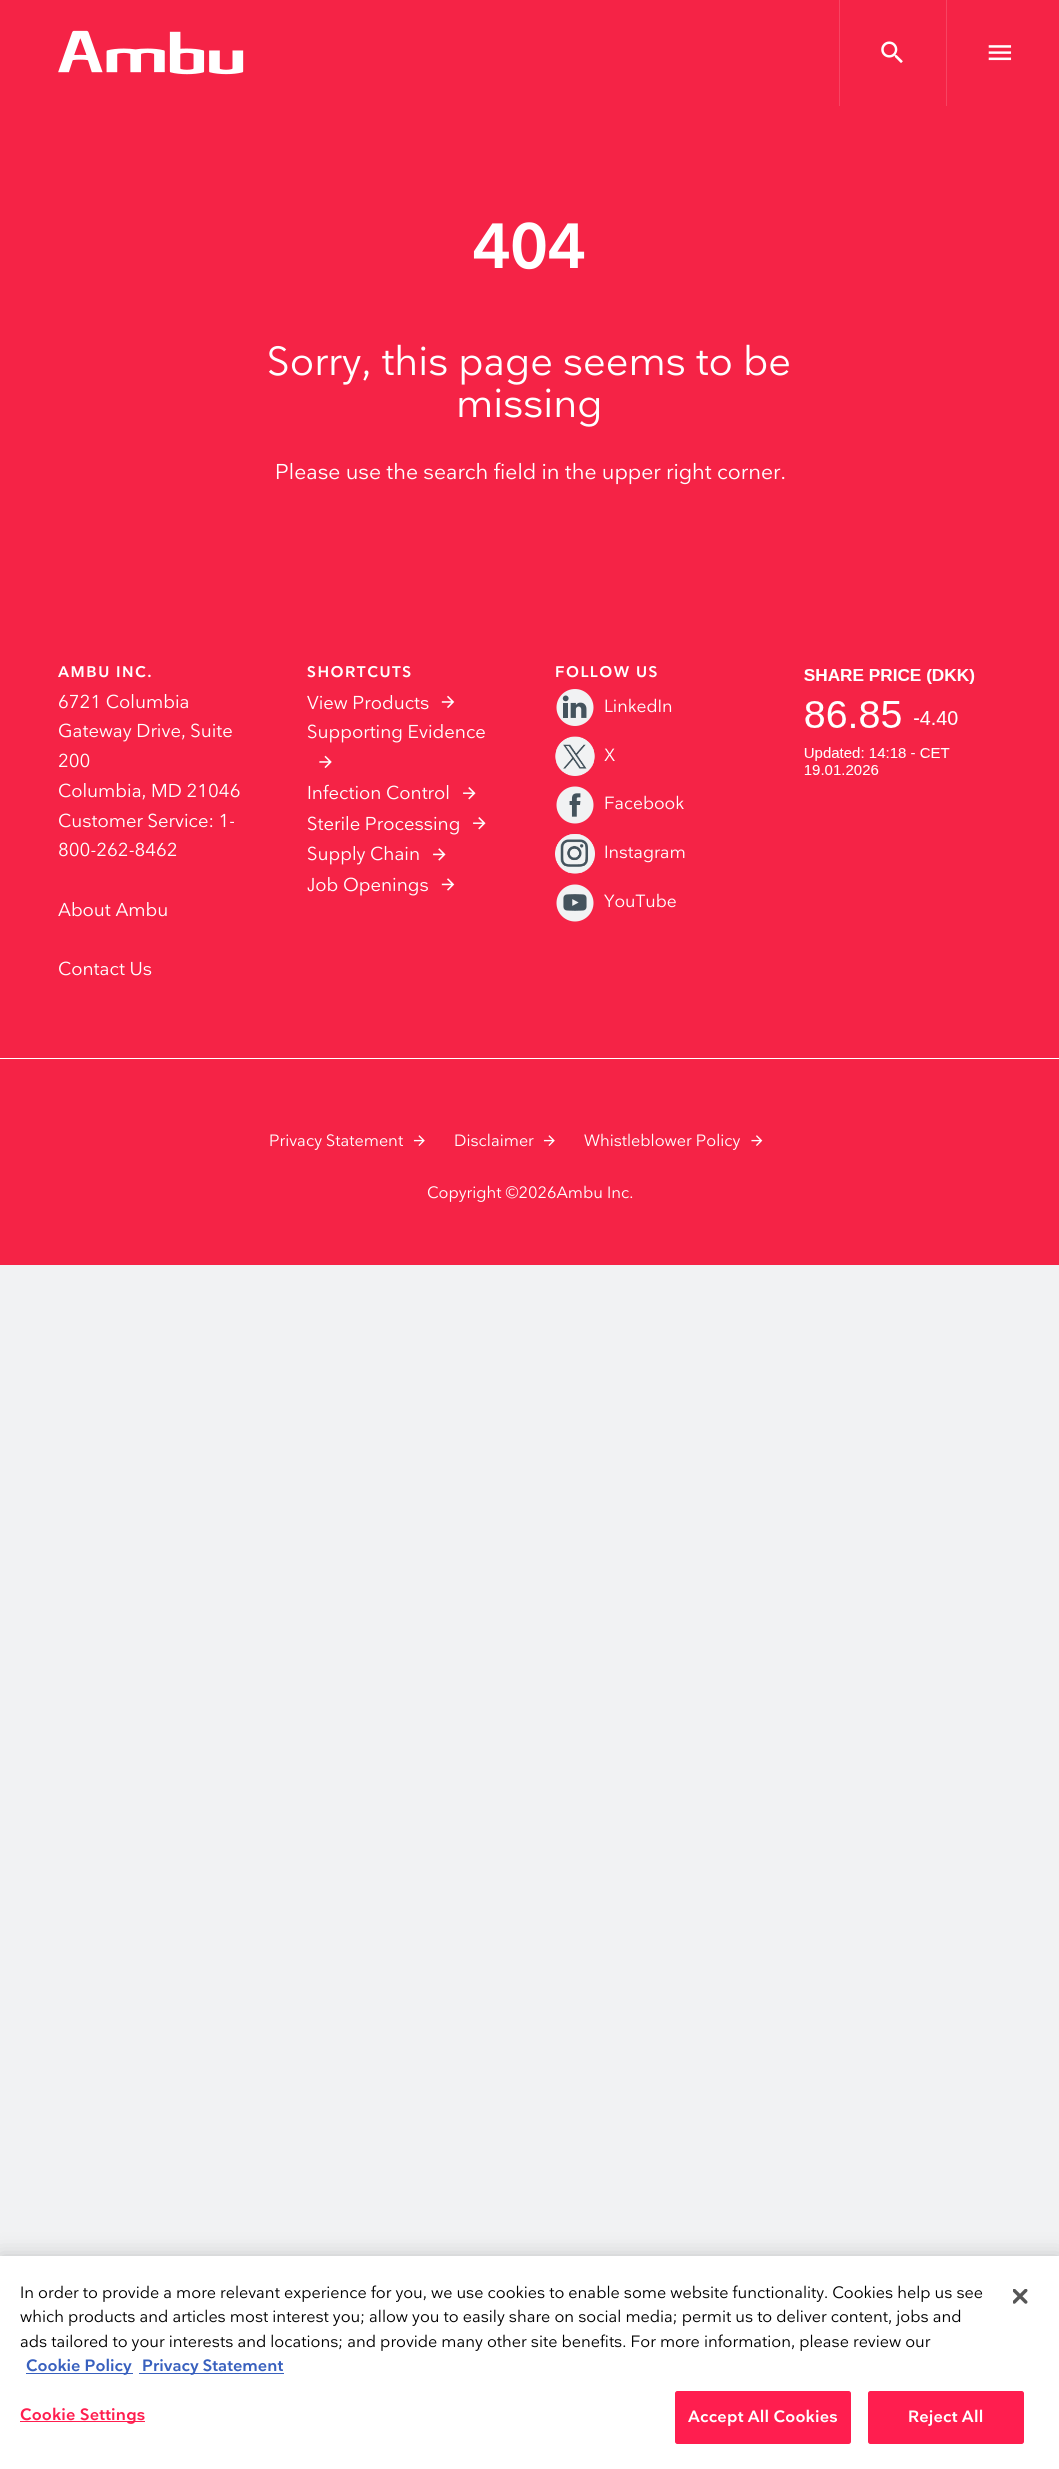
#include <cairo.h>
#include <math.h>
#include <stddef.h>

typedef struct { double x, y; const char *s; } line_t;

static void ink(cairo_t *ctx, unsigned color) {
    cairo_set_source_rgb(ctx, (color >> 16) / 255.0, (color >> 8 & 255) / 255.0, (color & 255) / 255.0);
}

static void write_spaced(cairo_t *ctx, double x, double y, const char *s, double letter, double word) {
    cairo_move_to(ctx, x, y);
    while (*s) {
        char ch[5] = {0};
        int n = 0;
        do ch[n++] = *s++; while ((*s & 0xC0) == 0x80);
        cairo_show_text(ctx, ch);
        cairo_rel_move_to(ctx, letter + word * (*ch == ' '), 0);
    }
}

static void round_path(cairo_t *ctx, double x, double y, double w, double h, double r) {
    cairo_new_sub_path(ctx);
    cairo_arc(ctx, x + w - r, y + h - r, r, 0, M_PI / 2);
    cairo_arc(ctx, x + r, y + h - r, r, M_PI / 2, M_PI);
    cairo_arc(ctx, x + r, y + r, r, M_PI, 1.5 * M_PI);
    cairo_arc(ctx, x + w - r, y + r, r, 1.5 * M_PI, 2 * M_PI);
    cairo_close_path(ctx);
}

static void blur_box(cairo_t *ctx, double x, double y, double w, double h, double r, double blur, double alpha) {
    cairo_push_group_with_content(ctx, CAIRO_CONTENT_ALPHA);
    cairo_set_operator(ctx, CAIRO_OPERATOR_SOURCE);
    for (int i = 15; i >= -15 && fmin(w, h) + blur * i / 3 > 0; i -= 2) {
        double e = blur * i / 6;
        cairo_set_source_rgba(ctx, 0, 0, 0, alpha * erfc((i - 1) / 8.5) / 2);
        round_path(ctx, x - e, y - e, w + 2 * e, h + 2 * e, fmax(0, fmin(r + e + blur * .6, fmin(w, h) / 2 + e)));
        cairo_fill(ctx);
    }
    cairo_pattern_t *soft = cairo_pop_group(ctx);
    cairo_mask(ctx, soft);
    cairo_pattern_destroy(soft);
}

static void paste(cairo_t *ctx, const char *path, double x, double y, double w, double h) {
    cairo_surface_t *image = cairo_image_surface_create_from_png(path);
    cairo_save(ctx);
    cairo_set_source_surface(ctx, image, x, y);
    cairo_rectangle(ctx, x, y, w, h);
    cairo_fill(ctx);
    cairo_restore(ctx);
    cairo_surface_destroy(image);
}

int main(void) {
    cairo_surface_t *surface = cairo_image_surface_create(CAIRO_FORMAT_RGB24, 1059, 2469);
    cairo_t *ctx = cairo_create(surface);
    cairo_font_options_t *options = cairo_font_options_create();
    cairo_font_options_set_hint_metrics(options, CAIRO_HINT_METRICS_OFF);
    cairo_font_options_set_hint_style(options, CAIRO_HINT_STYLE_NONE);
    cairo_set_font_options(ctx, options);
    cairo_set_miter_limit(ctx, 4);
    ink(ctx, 0xF1F2F3);
    cairo_paint(ctx);
    ink(ctx, 0xF52346);
    cairo_rectangle(ctx, 0, 0, 1059, 1058);
    cairo_fill(ctx);
    paste(ctx, "media/1.png", 58, 30, 186, 45);
    ink(ctx, 0xF74462);
    cairo_rectangle(ctx, 839, 0, 1, 106);
    cairo_fill(ctx);
    paste(ctx, "media/2.png", 881, 41, 22, 22);
    cairo_rectangle(ctx, 946, 0, 1, 106);
    cairo_fill(ctx);
    paste(ctx, "media/3.png", 988, 45, 24, 16);
    cairo_select_font_face(ctx, "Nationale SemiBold", CAIRO_FONT_SLANT_NORMAL, CAIRO_FONT_WEIGHT_NORMAL);
    cairo_set_font_size(ctx, 63);
    ink(ctx, 0xFFFFFF);
    write_spaced(ctx, 472, 268, "404", -1.5, 0);
    cairo_select_font_face(ctx, "Nationale", CAIRO_FONT_SLANT_NORMAL, CAIRO_FONT_WEIGHT_NORMAL);
    cairo_set_font_size(ctx, 40);
    cairo_move_to(ctx, 267, 375);
    cairo_show_text(ctx, "Sorry, this page seems to be");
    cairo_move_to(ctx, 456, 417);
    cairo_show_text(ctx, "missing");
    cairo_set_font_size(ctx, 21.25);
    cairo_move_to(ctx, 275, 479);
    cairo_show_text(ctx, "Please use the search field in the upper right corner.");
    cairo_select_font_face(ctx, "Nationale SemiBold", CAIRO_FONT_SLANT_NORMAL, CAIRO_FONT_WEIGHT_NORMAL);
    cairo_set_font_size(ctx, 15.25);
    write_spaced(ctx, 58, 677, "AMBU INC.", 1.5, 0);
    cairo_select_font_face(ctx, "Nationale", CAIRO_FONT_SLANT_NORMAL, CAIRO_FONT_WEIGHT_NORMAL);
    cairo_set_font_size(ctx, 18.5);
    {
        static const line_t items[] = {
            {58, 708, "6721 Columbia"},
            {58, 737, "Gateway Drive, Suite"},
            {58, 767, "200"},
            {58, 797, "Columbia, MD 21046"},
            {58, 827, "Customer Service: 1-"},
            {58, 856, "800-262-8462"},
            {58, 916, "About Ambu"},
            {58, 975, "Contact Us"},
        };
        for (size_t i = 0; i < sizeof items / sizeof *items; i++) {
            cairo_move_to(ctx, items[i].x, items[i].y);
            cairo_show_text(ctx, items[i].s);
        }
    }
    cairo_select_font_face(ctx, "Nationale SemiBold", CAIRO_FONT_SLANT_NORMAL, CAIRO_FONT_WEIGHT_NORMAL);
    cairo_set_font_size(ctx, 15.25);
    write_spaced(ctx, 307, 677, "SHORTCUTS", 1.5, 0);
    cairo_select_font_face(ctx, "Nationale", CAIRO_FONT_SLANT_NORMAL, CAIRO_FONT_WEIGHT_NORMAL);
    cairo_set_font_size(ctx, 18.5);
    cairo_move_to(ctx, 307, 709);
    cairo_show_text(ctx, "View Products");
    paste(ctx, "media/4.png", 441, 695, 14, 13);
    cairo_move_to(ctx, 307, 738);
    cairo_show_text(ctx, "Supporting Evidence");
    paste(ctx, "media/5.png", 319, 755, 13, 14);
    cairo_move_to(ctx, 307, 799);
    cairo_show_text(ctx, "Infection Control");
    paste(ctx, "media/6.png", 463, 787, 13, 13);
    cairo_move_to(ctx, 307, 830);
    cairo_show_text(ctx, "Sterile Processing");
    paste(ctx, "media/6.png", 473, 817, 13, 13);
    cairo_move_to(ctx, 307, 860);
    cairo_show_text(ctx, "Supply Chain");
    paste(ctx, "media/7.png", 433, 848, 13, 13);
    cairo_move_to(ctx, 307, 891);
    cairo_show_text(ctx, "Job Openings");
    paste(ctx, "media/8.png", 441, 878, 14, 13);
    cairo_select_font_face(ctx, "Nationale SemiBold", CAIRO_FONT_SLANT_NORMAL, CAIRO_FONT_WEIGHT_NORMAL);
    cairo_set_font_size(ctx, 15.25);
    write_spaced(ctx, 555, 677, "FOLLOW US", 1.5, 0);
    paste(ctx, "media/9.png", 556, 689, 38, 37);
    cairo_select_font_face(ctx, "Nationale", CAIRO_FONT_SLANT_NORMAL, CAIRO_FONT_WEIGHT_NORMAL);
    cairo_set_font_size(ctx, 17.5);
    cairo_move_to(ctx, 604, 712);
    cairo_show_text(ctx, "LinkedIn");
    paste(ctx, "media/10.png", 555, 736, 40, 40);
    cairo_move_to(ctx, 604, 761);
    cairo_show_text(ctx, "X");
    paste(ctx, "media/11.png", 556, 786, 38, 38);
    cairo_move_to(ctx, 604, 809);
    cairo_show_text(ctx, "Facebook");
    paste(ctx, "media/12.png", 555, 834, 40, 40);
    cairo_move_to(ctx, 604, 858);
    cairo_show_text(ctx, "Instagram");
    paste(ctx, "media/13.png", 556, 884, 38, 38);
    cairo_move_to(ctx, 604, 907);
    cairo_show_text(ctx, "YouTube");
    paste(ctx, "media/14.png", 804, 669, 171, 106);
    ink(ctx, 0xF52346);
    cairo_rectangle(ctx, 0, 1059, 1059, 206);
    cairo_fill(ctx);
    ink(ctx, 0xFFFFFF);
    cairo_rectangle(ctx, 0, 1058, 1059, 1);
    cairo_fill(ctx);
    cairo_set_font_size(ctx, 16.25);
    cairo_move_to(ctx, 269, 1146);
    cairo_show_text(ctx, "Privacy Statement");
    paste(ctx, "media/15.png", 413, 1135, 12, 11);
    cairo_move_to(ctx, 454, 1146);
    cairo_show_text(ctx, "Disclaimer");
    paste(ctx, "media/15.png", 543, 1135, 12, 11);
    cairo_move_to(ctx, 584, 1146);
    cairo_show_text(ctx, "Whistleblower Policy");
    paste(ctx, "media/16.png", 751, 1135, 12, 11);
    cairo_move_to(ctx, 427, 1198);
    cairo_show_text(ctx, "Copyright ©2026Ambu Inc.");
    ink(ctx, 0x000000);
    blur_box(ctx, 0, 2256, 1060, 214, 0, 11, 0.2);
    ink(ctx, 0xFFFFFF);
    cairo_rectangle(ctx, 0, 2256, 1059, 213);
    cairo_fill(ctx);
    ink(ctx, 0x000000);
    {
        static const line_t items[] = {
            {20, 2298, "In order to provide a more relevant experience for you, we use cookies to enable some website functionality. Cookies help us see"},
            {20, 2322, "which products and articles most interest you; allow you to easily share on social media; permit us to deliver content, jobs and"},
            {20, 2347, "ads tailored to your interests and locations; and provide many other site benefits. For more information, please review our"},
        };
        for (size_t i = 0; i < sizeof items / sizeof *items; i++) {
            cairo_move_to(ctx, items[i].x, items[i].y);
            cairo_show_text(ctx, items[i].s);
        }
    }
    ink(ctx, 0x3860BE);
    cairo_rectangle(ctx, 26, 2373, 107, 1);
    cairo_fill(ctx);
    cairo_select_font_face(ctx, "Nationale SemiBold", CAIRO_FONT_SLANT_NORMAL, CAIRO_FONT_WEIGHT_NORMAL);
    cairo_move_to(ctx, 26, 2371);
    cairo_show_text(ctx, "Cookie Policy");
    cairo_rectangle(ctx, 139, 2373, 145, 1);
    cairo_fill(ctx);
    cairo_move_to(ctx, 142, 2371);
    cairo_show_text(ctx, "Privacy Statement");
    ink(ctx, 0xFF1E4F);
    cairo_rectangle(ctx, 20, 2421, 125, 1);
    cairo_fill(ctx);
    write_spaced(ctx, 20, 2420, "Cookie Settings", 0.2, 0);
    round_path(ctx, 675.5, 2391.5, 175, 52, 2);
    cairo_fill_preserve(ctx);
    cairo_set_line_width(ctx, 1);
    cairo_stroke(ctx);
    ink(ctx, 0xFFFFFF);
    write_spaced(ctx, 688, 2422, "Accept All Cookies", 0.2, 0);
    ink(ctx, 0xFF1E4F);
    round_path(ctx, 868.5, 2391.5, 155, 52, 2);
    cairo_fill_preserve(ctx);
    cairo_stroke(ctx);
    ink(ctx, 0xFFFFFF);
    write_spaced(ctx, 908, 2422, "Reject All", 0.2, 0);
    paste(ctx, "media/17.png", 1013, 2289, 15, 15);
    cairo_surface_write_to_png(surface, "image.png");
    cairo_font_options_destroy(options);
    cairo_destroy(ctx);
    cairo_surface_destroy(surface);
    return 0;
}
